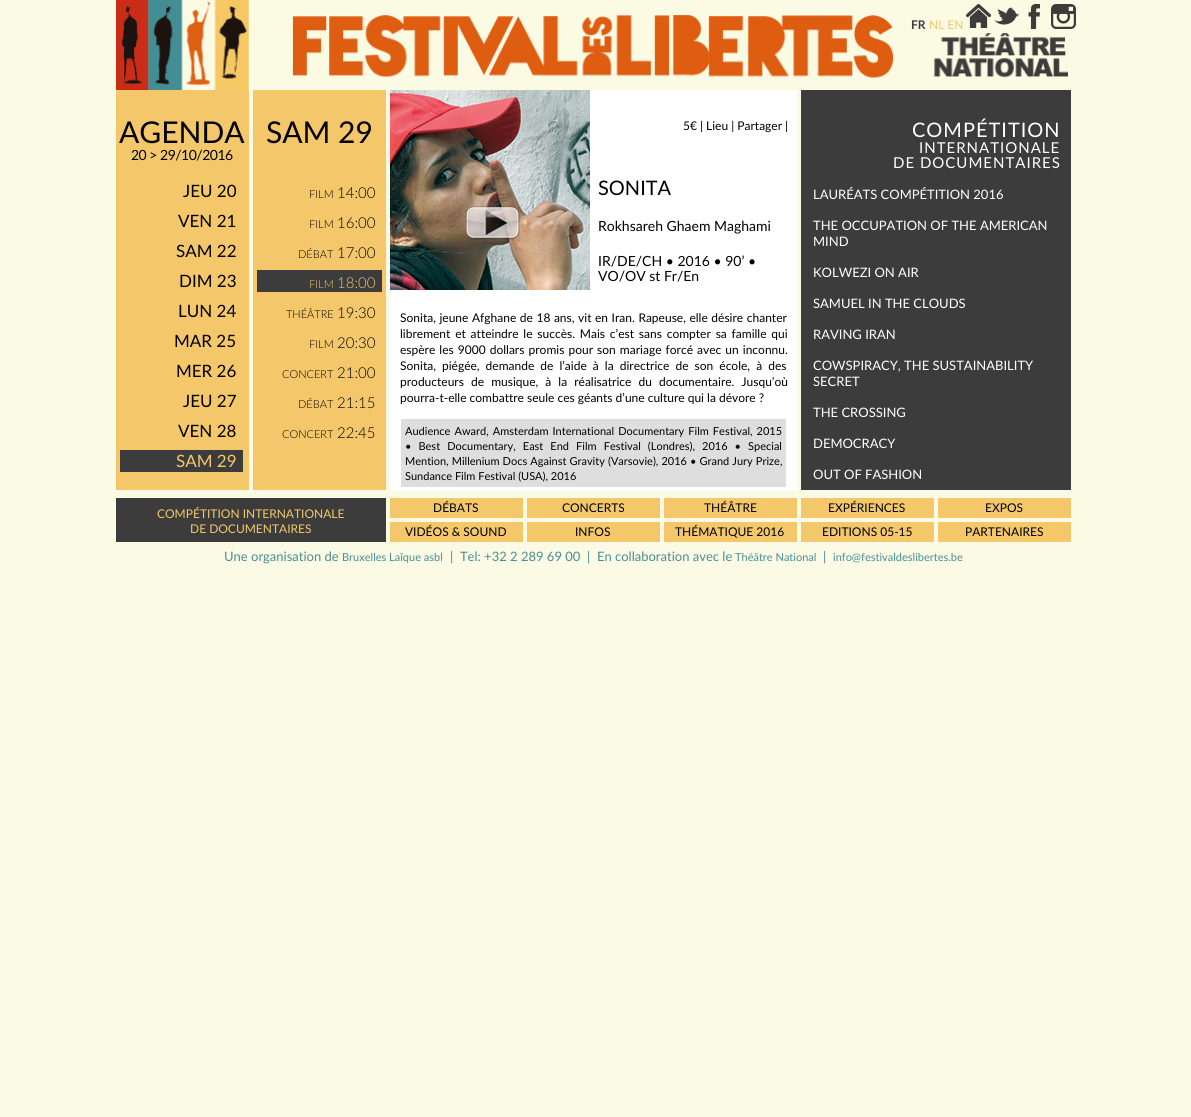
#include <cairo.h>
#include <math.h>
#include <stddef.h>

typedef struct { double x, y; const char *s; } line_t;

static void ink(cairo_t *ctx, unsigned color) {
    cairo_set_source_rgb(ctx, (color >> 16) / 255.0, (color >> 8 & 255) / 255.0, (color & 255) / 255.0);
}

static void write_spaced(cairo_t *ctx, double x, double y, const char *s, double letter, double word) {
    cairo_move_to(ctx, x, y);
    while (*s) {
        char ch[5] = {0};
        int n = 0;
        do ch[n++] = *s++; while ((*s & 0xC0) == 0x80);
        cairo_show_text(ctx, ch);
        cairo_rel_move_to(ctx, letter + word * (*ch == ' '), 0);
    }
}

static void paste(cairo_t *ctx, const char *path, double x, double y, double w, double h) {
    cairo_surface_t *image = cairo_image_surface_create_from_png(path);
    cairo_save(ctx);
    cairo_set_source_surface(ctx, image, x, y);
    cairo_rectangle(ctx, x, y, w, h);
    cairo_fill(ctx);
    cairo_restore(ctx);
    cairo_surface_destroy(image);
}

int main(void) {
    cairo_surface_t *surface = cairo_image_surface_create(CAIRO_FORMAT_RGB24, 1191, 1117);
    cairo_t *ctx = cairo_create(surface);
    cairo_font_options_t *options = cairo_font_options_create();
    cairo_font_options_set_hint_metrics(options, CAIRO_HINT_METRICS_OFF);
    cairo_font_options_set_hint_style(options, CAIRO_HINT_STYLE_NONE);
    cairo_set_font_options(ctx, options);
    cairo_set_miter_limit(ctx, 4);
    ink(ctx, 0xFBFAE5);
    cairo_paint(ctx);
    paste(ctx, "media/1.png", 116, 0, 952, 90);
    cairo_select_font_face(ctx, "Lato", CAIRO_FONT_SLANT_NORMAL, CAIRO_FONT_WEIGHT_BOLD);
    cairo_set_font_size(ctx, 12);
    ink(ctx, 0x3C3C3C);
    cairo_move_to(ctx, 911, 29);
    cairo_show_text(ctx, "FR");
    cairo_select_font_face(ctx, "Lato", CAIRO_FONT_SLANT_NORMAL, CAIRO_FONT_WEIGHT_NORMAL);
    ink(ctx, 0xF4C76A);
    cairo_move_to(ctx, 929, 29);
    cairo_show_text(ctx, "NL EN");
    paste(ctx, "media/2.png", 966, 4, 25, 24);
    paste(ctx, "media/3.png", 994, 7, 25, 18);
    paste(ctx, "media/4.png", 1028, 4, 12, 25);
    paste(ctx, "media/5.png", 1051, 4, 25, 25);
    cairo_rectangle(ctx, 116, 90, 133, 400);
    cairo_fill(ctx);
    cairo_set_font_size(ctx, 30);
    ink(ctx, 0x000000);
    cairo_move_to(ctx, 119, 143);
    cairo_show_text(ctx, "AGENDA");
    cairo_set_font_size(ctx, 14);
    write_spaced(ctx, 131, 160, "20 > 29/10/2016", -0.5, 0);
    cairo_set_font_size(ctx, 17);
    {
        static const line_t items[] = {
            {183, 197, "JEU 20"},
            {178, 227, "VEN 21"},
            {176, 257, "SAM 22"},
            {179, 287, "DIM 23"},
            {178, 317, "LUN 24"},
            {174, 347, "MAR 25"},
            {176, 377, "MER 26"},
            {183, 407, "JEU 27"},
            {178, 437, "VEN 28"},
        };
        for (size_t i = 0; i < sizeof items / sizeof *items; i++) {
            cairo_move_to(ctx, items[i].x, items[i].y);
            cairo_show_text(ctx, items[i].s);
        }
    }
    ink(ctx, 0x3C3C3C);
    cairo_rectangle(ctx, 120, 450, 123, 22);
    cairo_fill(ctx);
    ink(ctx, 0xF4C76A);
    cairo_move_to(ctx, 176, 467);
    cairo_show_text(ctx, "SAM 29");
    cairo_rectangle(ctx, 253, 90, 133, 400);
    cairo_fill(ctx);
    cairo_set_font_size(ctx, 30);
    ink(ctx, 0x000000);
    cairo_move_to(ctx, 266, 143);
    cairo_show_text(ctx, "SAM 29");
    cairo_select_font_face(ctx, "Lato Light", CAIRO_FONT_SLANT_NORMAL, CAIRO_FONT_WEIGHT_NORMAL);
    cairo_set_font_size(ctx, 11);
    cairo_move_to(ctx, 309, 198);
    cairo_show_text(ctx, "FILM");
    cairo_set_font_size(ctx, 15);
    cairo_move_to(ctx, 337, 198);
    cairo_show_text(ctx, "14:00");
    cairo_set_font_size(ctx, 11);
    cairo_move_to(ctx, 309, 228);
    cairo_show_text(ctx, "FILM");
    cairo_set_font_size(ctx, 15);
    cairo_move_to(ctx, 337, 228);
    cairo_show_text(ctx, "16:00");
    cairo_set_font_size(ctx, 11);
    cairo_move_to(ctx, 298, 258);
    cairo_show_text(ctx, "DÉBAT");
    cairo_set_font_size(ctx, 15);
    cairo_move_to(ctx, 337, 258);
    cairo_show_text(ctx, "17:00");
    ink(ctx, 0x3C3C3C);
    cairo_rectangle(ctx, 257, 270, 125, 22);
    cairo_fill(ctx);
    cairo_set_font_size(ctx, 11);
    ink(ctx, 0xF4C76A);
    cairo_move_to(ctx, 309, 288);
    cairo_show_text(ctx, "FILM");
    cairo_set_font_size(ctx, 15);
    cairo_move_to(ctx, 337, 288);
    cairo_show_text(ctx, "18:00");
    cairo_set_font_size(ctx, 11);
    ink(ctx, 0x000000);
    cairo_move_to(ctx, 286, 318);
    cairo_show_text(ctx, "THÉÂTRE");
    cairo_set_font_size(ctx, 15);
    cairo_move_to(ctx, 337, 318);
    cairo_show_text(ctx, "19:30");
    cairo_set_font_size(ctx, 11);
    cairo_move_to(ctx, 309, 348);
    cairo_show_text(ctx, "FILM");
    cairo_set_font_size(ctx, 15);
    cairo_move_to(ctx, 337, 348);
    cairo_show_text(ctx, "20:30");
    cairo_set_font_size(ctx, 11);
    cairo_move_to(ctx, 282, 378);
    cairo_show_text(ctx, "CONCERT");
    cairo_set_font_size(ctx, 15);
    cairo_move_to(ctx, 337, 378);
    cairo_show_text(ctx, "21:00");
    cairo_set_font_size(ctx, 11);
    cairo_move_to(ctx, 298, 408);
    cairo_show_text(ctx, "DÉBAT");
    cairo_set_font_size(ctx, 15);
    cairo_move_to(ctx, 337, 408);
    cairo_show_text(ctx, "21:15");
    cairo_set_font_size(ctx, 11);
    cairo_move_to(ctx, 282, 438);
    cairo_show_text(ctx, "CONCERT");
    cairo_set_font_size(ctx, 15);
    cairo_move_to(ctx, 337, 438);
    cairo_show_text(ctx, "22:45");
    ink(ctx, 0xFFFFFF);
    cairo_rectangle(ctx, 390, 90, 407, 400);
    cairo_fill(ctx);
    paste(ctx, "media/6.png", 390, 90, 200, 200);
    paste(ctx, "media/7.png", 465, 206, 55, 34);
    cairo_select_font_face(ctx, "Lato", CAIRO_FONT_SLANT_NORMAL, CAIRO_FONT_WEIGHT_NORMAL);
    cairo_set_font_size(ctx, 12);
    ink(ctx, 0x000000);
    cairo_move_to(ctx, 683, 130);
    cairo_show_text(ctx, "5€ | Lieu | Partager |");
    cairo_set_font_size(ctx, 20);
    cairo_move_to(ctx, 598, 195);
    cairo_show_text(ctx, "SONITA");
    cairo_set_font_size(ctx, 14);
    {
        static const line_t items[] = {
            {598, 231, "Rokhsareh Ghaem Maghami"},
            {598, 266, "IR/DE/CH • 2016 • 90’ •"},
            {598, 281, "VO/OV st Fr/En"},
        };
        for (size_t i = 0; i < sizeof items / sizeof *items; i++) {
            cairo_move_to(ctx, items[i].x, items[i].y);
            cairo_show_text(ctx, items[i].s);
        }
    }
    cairo_set_font_size(ctx, 12);
    write_spaced(ctx, 400, 322, "Sonita, jeune Afghane de 18 ans, vit en Iran. Rapeuse, elle désire chanter", 0, 0.5);
    write_spaced(ctx, 400, 338, "librement et atteindre le succès. Mais c’est sans compter sa famille qui", 0, 1.75);
    write_spaced(ctx, 400, 354, "espère les 9000 dollars promis pour son mariage forcé avec un inconnu.", 0, 1);
    write_spaced(ctx, 400, 370, "Sonita, piégée, demande de l’aide à la directrice de son école, à des", 0, 3);
    write_spaced(ctx, 400, 386, "producteurs de musique, à la réalisatrice du documentaire. Jusqu’où", 0, 4);
    cairo_move_to(ctx, 400, 402);
    cairo_show_text(ctx, "pourra-t-elle combattre seule ces géants d’une culture qui la dévore ?");
    ink(ctx, 0xDEDEDE);
    cairo_rectangle(ctx, 401, 419, 385, 68);
    cairo_fill(ctx);
    cairo_set_font_size(ctx, 11);
    ink(ctx, 0x000000);
    write_spaced(ctx, 405, 435, "Audience Award, Amsterdam International Documentary Film Festival, 2015", 0, 1.25);
    write_spaced(ctx, 405, 450, "• Best Documentary, East End Film Festival (Londres), 2016 • Special", 0, 4.25);
    write_spaced(ctx, 405, 465, "Mention, Millenium Docs Against Gravity (Varsovie), 2016 • Grand Jury Prize,", 0, 0.25);
    cairo_move_to(ctx, 405, 480);
    cairo_show_text(ctx, "Sundance Film Festival (USA), 2016");
    ink(ctx, 0x3C3C3C);
    cairo_rectangle(ctx, 801, 90, 270, 400);
    cairo_fill(ctx);
    cairo_set_font_size(ctx, 20);
    ink(ctx, 0xFFFFFF);
    write_spaced(ctx, 912, 137, "COMPÉTITION", 1, 0);
    cairo_set_font_size(ctx, 15);
    write_spaced(ctx, 919, 153, "INTERNATIONALE", 1, 0);
    write_spaced(ctx, 893, 168, "DE DOCUMENTAIRES", 1, 0);
    cairo_set_font_size(ctx, 13);
    {
        static const line_t items[] = {
            {813, 199, "LAURÉATS COMPÉTITION 2016"},
            {813, 230, "THE OCCUPATION OF THE AMERICAN"},
            {813, 246, "MIND"},
            {813, 277, "KOLWEZI ON AIR"},
            {813, 308, "SAMUEL IN THE CLOUDS"},
            {813, 339, "RAVING IRAN"},
            {813, 370, "COWSPIRACY, THE SUSTAINABILITY"},
            {813, 386, "SECRET"},
            {813, 417, "THE CROSSING"},
            {813, 448, "DEMOCRACY"},
            {813, 479, "OUT OF FASHION"},
        };
        for (size_t i = 0; i < sizeof items / sizeof *items; i++) {
            cairo_move_to(ctx, items[i].x, items[i].y);
            cairo_show_text(ctx, items[i].s);
        }
    }
    ink(ctx, 0x3C3C3C);
    cairo_rectangle(ctx, 116, 498, 270, 44);
    cairo_fill(ctx);
    cairo_set_font_size(ctx, 12);
    ink(ctx, 0xF4C76A);
    cairo_move_to(ctx, 157, 518);
    cairo_show_text(ctx, "COMPÉTITION INTERNATIONALE");
    cairo_move_to(ctx, 190, 533);
    cairo_show_text(ctx, "DE DOCUMENTAIRES");
    cairo_rectangle(ctx, 390, 498, 133, 20);
    cairo_fill(ctx);
    ink(ctx, 0x000000);
    cairo_move_to(ctx, 433, 512);
    cairo_show_text(ctx, "DÉBATS");
    ink(ctx, 0xF4C76A);
    cairo_rectangle(ctx, 527, 498, 133, 20);
    cairo_fill(ctx);
    ink(ctx, 0x000000);
    cairo_move_to(ctx, 562, 512);
    cairo_show_text(ctx, "CONCERTS");
    ink(ctx, 0xF4C76A);
    cairo_rectangle(ctx, 664, 498, 133, 20);
    cairo_fill(ctx);
    ink(ctx, 0x000000);
    cairo_move_to(ctx, 704, 512);
    cairo_show_text(ctx, "THÉÂTRE");
    ink(ctx, 0xF4C76A);
    cairo_rectangle(ctx, 801, 498, 133, 20);
    cairo_fill(ctx);
    ink(ctx, 0x000000);
    cairo_move_to(ctx, 828, 512);
    cairo_show_text(ctx, "EXPÉRIENCES");
    ink(ctx, 0xF4C76A);
    cairo_rectangle(ctx, 938, 498, 133, 20);
    cairo_fill(ctx);
    ink(ctx, 0x000000);
    cairo_move_to(ctx, 985, 512);
    cairo_show_text(ctx, "EXPOS");
    ink(ctx, 0xF4C76A);
    cairo_rectangle(ctx, 390, 522, 133, 20);
    cairo_fill(ctx);
    ink(ctx, 0x000000);
    cairo_move_to(ctx, 405, 536);
    cairo_show_text(ctx, "VIDÉOS & SOUND");
    ink(ctx, 0xF4C76A);
    cairo_rectangle(ctx, 527, 522, 133, 20);
    cairo_fill(ctx);
    ink(ctx, 0x000000);
    cairo_move_to(ctx, 575, 536);
    cairo_show_text(ctx, "INFOS");
    ink(ctx, 0xF4C76A);
    cairo_rectangle(ctx, 664, 522, 133, 20);
    cairo_fill(ctx);
    ink(ctx, 0x000000);
    cairo_move_to(ctx, 675, 536);
    cairo_show_text(ctx, "THÉMATIQUE 2016");
    ink(ctx, 0xF4C76A);
    cairo_rectangle(ctx, 801, 522, 133, 20);
    cairo_fill(ctx);
    ink(ctx, 0x000000);
    cairo_move_to(ctx, 822, 536);
    cairo_show_text(ctx, "EDITIONS 05-15");
    ink(ctx, 0xF4C76A);
    cairo_rectangle(ctx, 938, 522, 133, 20);
    cairo_fill(ctx);
    ink(ctx, 0x000000);
    cairo_move_to(ctx, 965, 536);
    cairo_show_text(ctx, "PARTENAIRES");
    cairo_set_font_size(ctx, 13);
    ink(ctx, 0x488D94);
    cairo_move_to(ctx, 224, 561);
    cairo_show_text(ctx, "Une organisation de");
    cairo_set_font_size(ctx, 11);
    cairo_move_to(ctx, 342, 561);
    cairo_show_text(ctx, "Bruxelles Laïque asbl");
    cairo_set_font_size(ctx, 13);
    cairo_move_to(ctx, 450, 561);
    cairo_show_text(ctx, "|  Tel: +32 2 289 69 00  |  En collaboration avec le");
    cairo_set_font_size(ctx, 11);
    cairo_move_to(ctx, 735, 561);
    cairo_show_text(ctx, "Théâtre National");
    cairo_set_font_size(ctx, 13);
    cairo_move_to(ctx, 823, 561);
    cairo_show_text(ctx, "|");
    cairo_set_font_size(ctx, 11);
    cairo_move_to(ctx, 833, 561);
    cairo_show_text(ctx, "info@festivaldeslibertes.be");
    cairo_surface_write_to_png(surface, "image.png");
    cairo_font_options_destroy(options);
    cairo_destroy(ctx);
    cairo_surface_destroy(surface);
    return 0;
}
